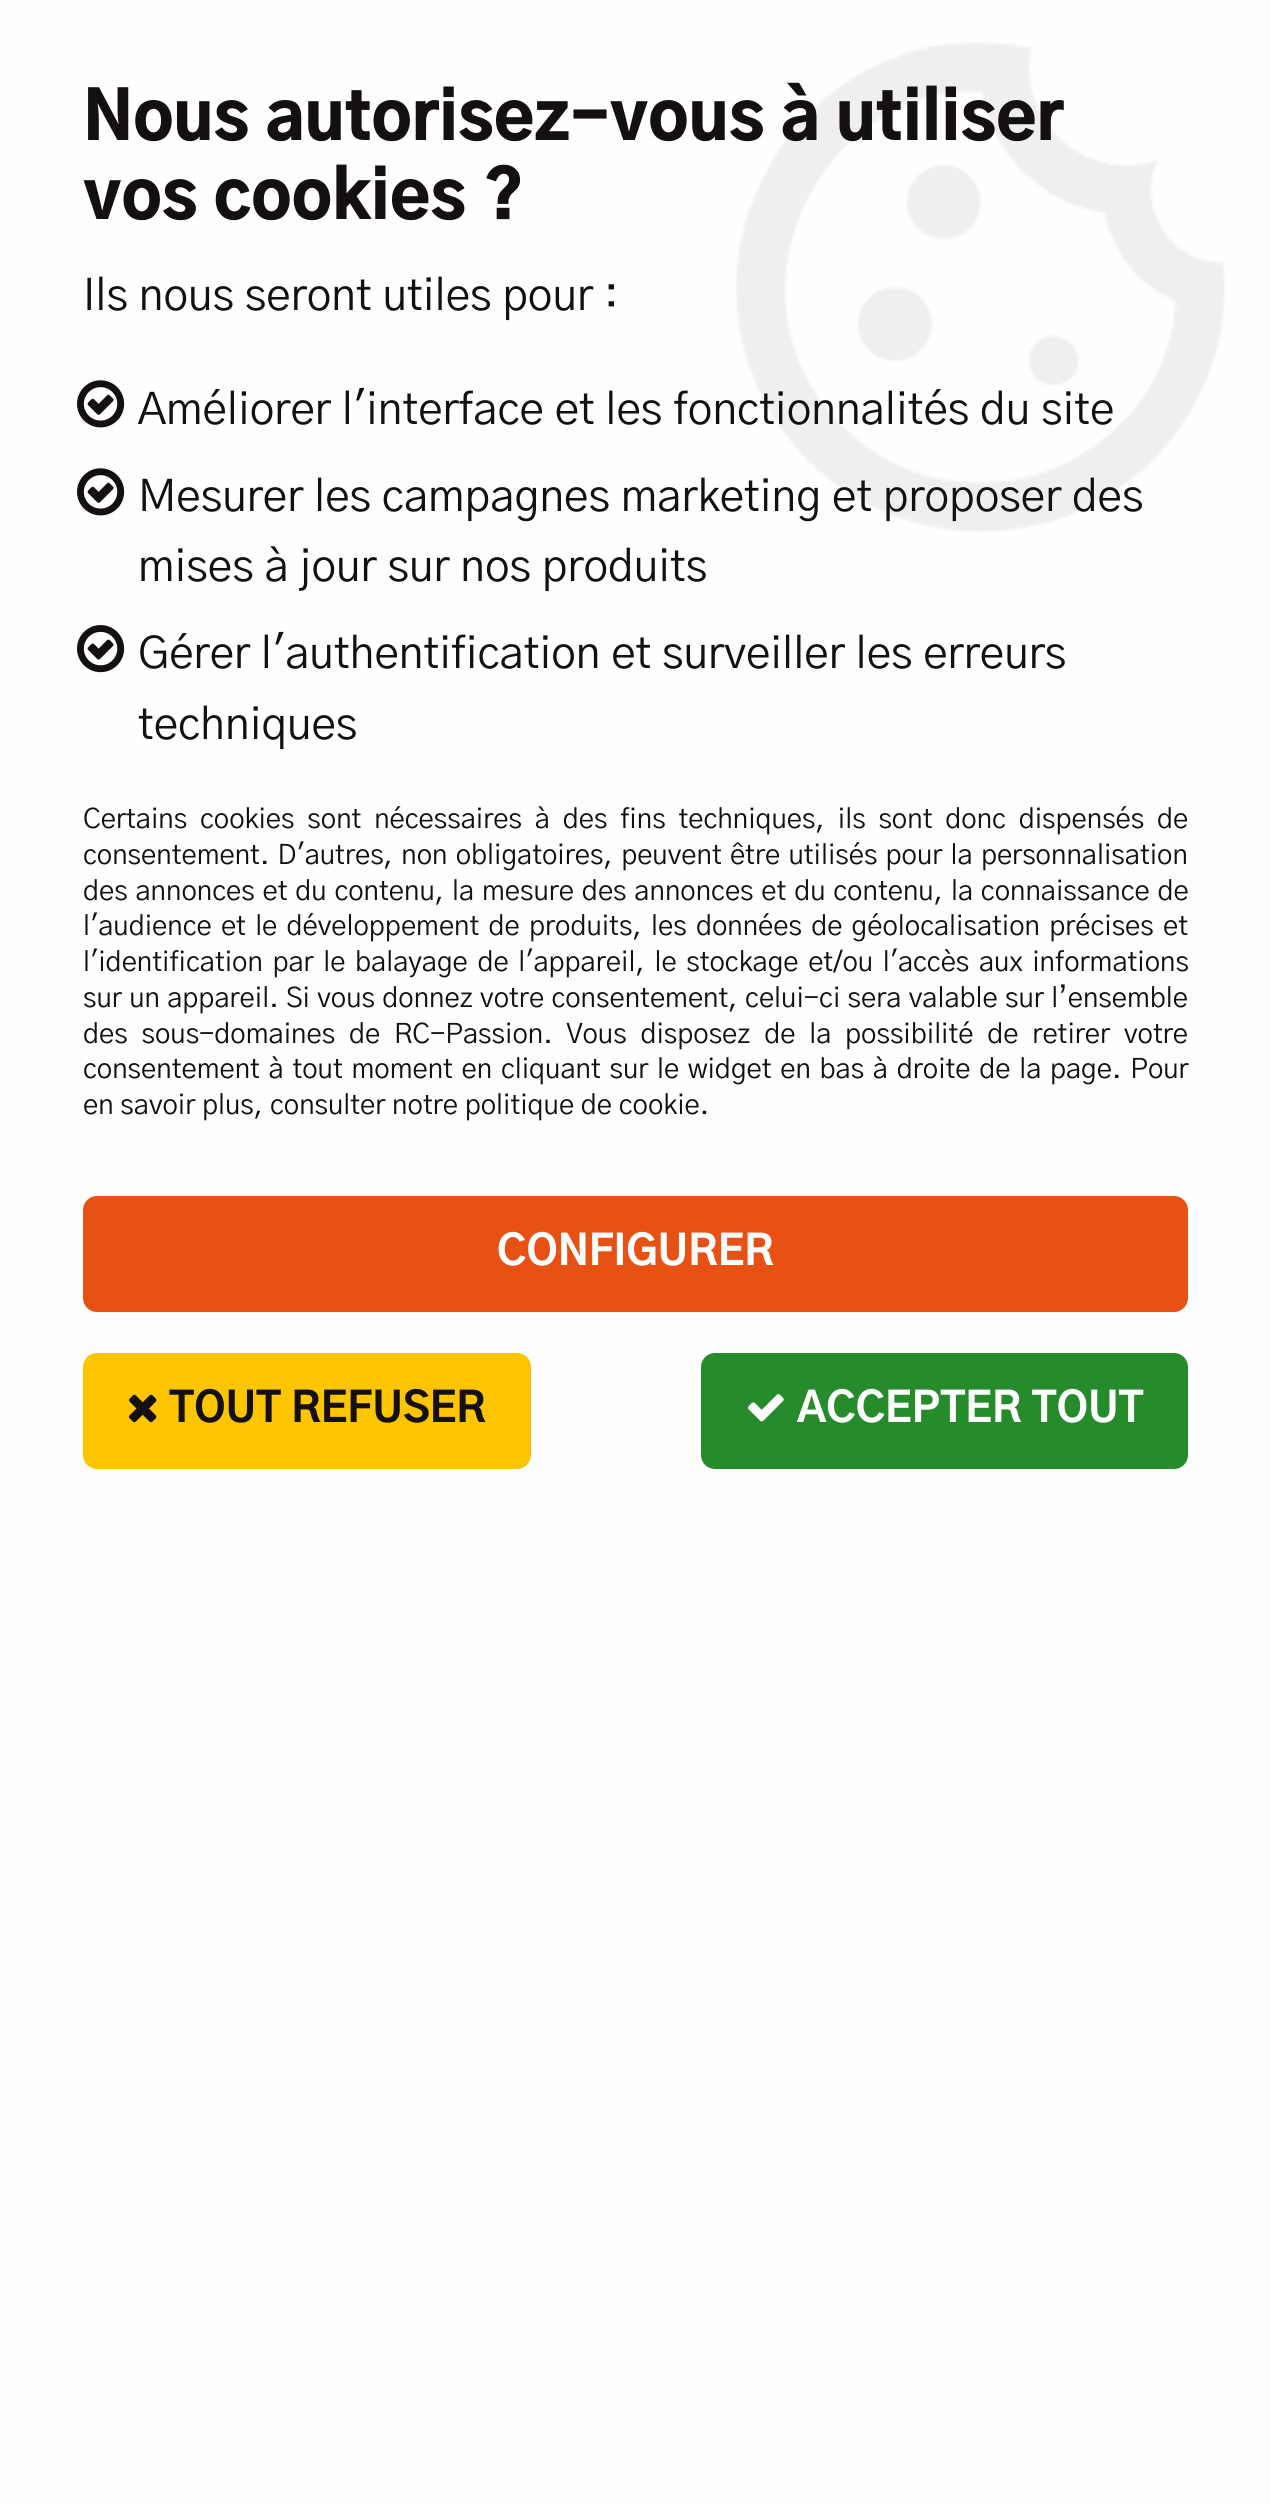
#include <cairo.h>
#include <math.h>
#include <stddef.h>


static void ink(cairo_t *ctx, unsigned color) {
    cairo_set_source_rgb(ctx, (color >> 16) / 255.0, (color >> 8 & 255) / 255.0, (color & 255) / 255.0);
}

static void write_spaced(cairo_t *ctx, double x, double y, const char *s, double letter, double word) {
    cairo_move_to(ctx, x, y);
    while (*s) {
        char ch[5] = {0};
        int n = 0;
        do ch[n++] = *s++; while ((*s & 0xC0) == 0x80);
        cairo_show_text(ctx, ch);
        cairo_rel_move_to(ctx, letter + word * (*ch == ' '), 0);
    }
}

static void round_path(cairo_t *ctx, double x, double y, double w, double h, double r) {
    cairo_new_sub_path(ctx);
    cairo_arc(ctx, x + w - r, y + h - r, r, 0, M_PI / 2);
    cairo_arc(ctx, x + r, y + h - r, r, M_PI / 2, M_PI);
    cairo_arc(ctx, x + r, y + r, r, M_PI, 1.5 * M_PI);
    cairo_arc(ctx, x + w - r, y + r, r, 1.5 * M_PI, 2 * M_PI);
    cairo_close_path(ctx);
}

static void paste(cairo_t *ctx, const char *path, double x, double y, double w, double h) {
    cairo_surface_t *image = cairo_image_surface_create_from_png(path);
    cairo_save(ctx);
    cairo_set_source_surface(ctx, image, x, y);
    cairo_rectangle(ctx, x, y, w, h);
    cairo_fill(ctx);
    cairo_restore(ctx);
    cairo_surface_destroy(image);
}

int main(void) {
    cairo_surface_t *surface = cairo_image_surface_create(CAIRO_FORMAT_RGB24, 1270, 2505);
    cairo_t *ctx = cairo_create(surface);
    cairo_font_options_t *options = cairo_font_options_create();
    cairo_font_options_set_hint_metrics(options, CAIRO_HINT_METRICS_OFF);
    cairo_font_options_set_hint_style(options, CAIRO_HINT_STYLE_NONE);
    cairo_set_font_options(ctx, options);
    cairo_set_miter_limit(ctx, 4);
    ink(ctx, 0xFEFEFE);
    cairo_paint(ctx);
    paste(ctx, "media/1.png", 736, 41, 489, 491);
    cairo_select_font_face(ctx, "Gothic A1 Black", CAIRO_FONT_SLANT_NORMAL, CAIRO_FONT_WEIGHT_NORMAL);
    cairo_set_font_size(ctx, 66);
    ink(ctx, 0x140F11);
    cairo_move_to(ctx, 83, 140);
    cairo_show_text(ctx, "Nous autorisez-vous à utiliser");
    cairo_move_to(ctx, 83, 219);
    cairo_show_text(ctx, "vos cookies ?");
    cairo_select_font_face(ctx, "Gothic A1", CAIRO_FONT_SLANT_NORMAL, CAIRO_FONT_WEIGHT_NORMAL);
    cairo_set_font_size(ctx, 44);
    cairo_move_to(ctx, 83, 310);
    cairo_show_text(ctx, "Ils nous seront utiles pour :");
    paste(ctx, "media/2.png", 77, 380, 48, 48);
    cairo_move_to(ctx, 138, 424);
    cairo_show_text(ctx, "Améliorer l'interface et les fonctionnalités du site");
    paste(ctx, "media/2.png", 77, 468, 48, 48);
    cairo_move_to(ctx, 138, 511);
    cairo_show_text(ctx, "Mesurer les campagnes marketing et proposer des");
    cairo_move_to(ctx, 138, 581);
    cairo_show_text(ctx, "mises à jour sur nos produits");
    paste(ctx, "media/3.png", 77, 625, 48, 48);
    cairo_move_to(ctx, 138, 668);
    cairo_show_text(ctx, "Gérer l'authentification et surveiller les erreurs");
    cairo_move_to(ctx, 138, 739);
    cairo_show_text(ctx, "techniques");
    cairo_set_font_size(ctx, 27.5);
    write_spaced(ctx, 83, 828, "Certains cookies sont nécessaires à des fins techniques, ils sont donc dispensés de", 0, 6.1);
    write_spaced(ctx, 83, 864, "consentement. D'autres, non obligatoires, peuvent être utilisés pour la personnalisation", 0, 1.5);
    write_spaced(ctx, 83, 900, "des annonces et du contenu, la mesure des annonces et du contenu, la connaissance de", 0, 1.1);
    write_spaced(ctx, 83, 935, "l'audience et le développement de produits, les données de géolocalisation précises et", 0, 2.5);
    write_spaced(ctx, 83, 971, "l'identification par le balayage de l'appareil, le stockage et/ou l'accès aux informations", 0, 2.9);
    write_spaced(ctx, 83, 1007, "sur un appareil. Si vous donnez votre consentement, celui-ci sera valable sur l’ensemble", 0, 0.6);
    write_spaced(ctx, 83, 1043, "des sous-domaines de RC-Passion. Vous disposez de la possibilité de retirer votre", 0, 7.1);
    write_spaced(ctx, 83, 1078, "consentement à tout moment en cliquant sur le widget en bas à droite de la page. Pour", 0, 2);
    cairo_move_to(ctx, 83, 1114);
    cairo_show_text(ctx, "en savoir plus, consulter notre politique de cookie.");
    ink(ctx, 0xE75113);
    round_path(ctx, 84.5, 1197.5, 1102, 113, 12.5);
    cairo_fill_preserve(ctx);
    cairo_set_line_width(ctx, 3);
    cairo_stroke(ctx);
    cairo_select_font_face(ctx, "Gothic A1 ExtraBold", CAIRO_FONT_SLANT_NORMAL, CAIRO_FONT_WEIGHT_NORMAL);
    cairo_set_font_size(ctx, 41.25);
    ink(ctx, 0xFFFFFF);
    cairo_move_to(ctx, 497, 1265);
    cairo_show_text(ctx, "CONFIGURER");
    ink(ctx, 0xFDC400);
    round_path(ctx, 84.5, 1354.5, 445, 113, 12.5);
    cairo_fill_preserve(ctx);
    cairo_stroke(ctx);
    paste(ctx, "media/4.png", 129, 1394, 28, 29);
    ink(ctx, 0x140F11);
    cairo_move_to(ctx, 169, 1422);
    cairo_show_text(ctx, "TOUT REFUSER");
    ink(ctx, 0x268B2B);
    round_path(ctx, 702.5, 1354.5, 484, 113, 12.5);
    cairo_fill_preserve(ctx);
    cairo_stroke(ctx);
    paste(ctx, "media/5.png", 748, 1394, 36, 28);
    ink(ctx, 0xFFFFFF);
    cairo_move_to(ctx, 797, 1422);
    cairo_show_text(ctx, "ACCEPTER TOUT");
    cairo_surface_write_to_png(surface, "image.png");
    cairo_font_options_destroy(options);
    cairo_destroy(ctx);
    cairo_surface_destroy(surface);
    return 0;
}
